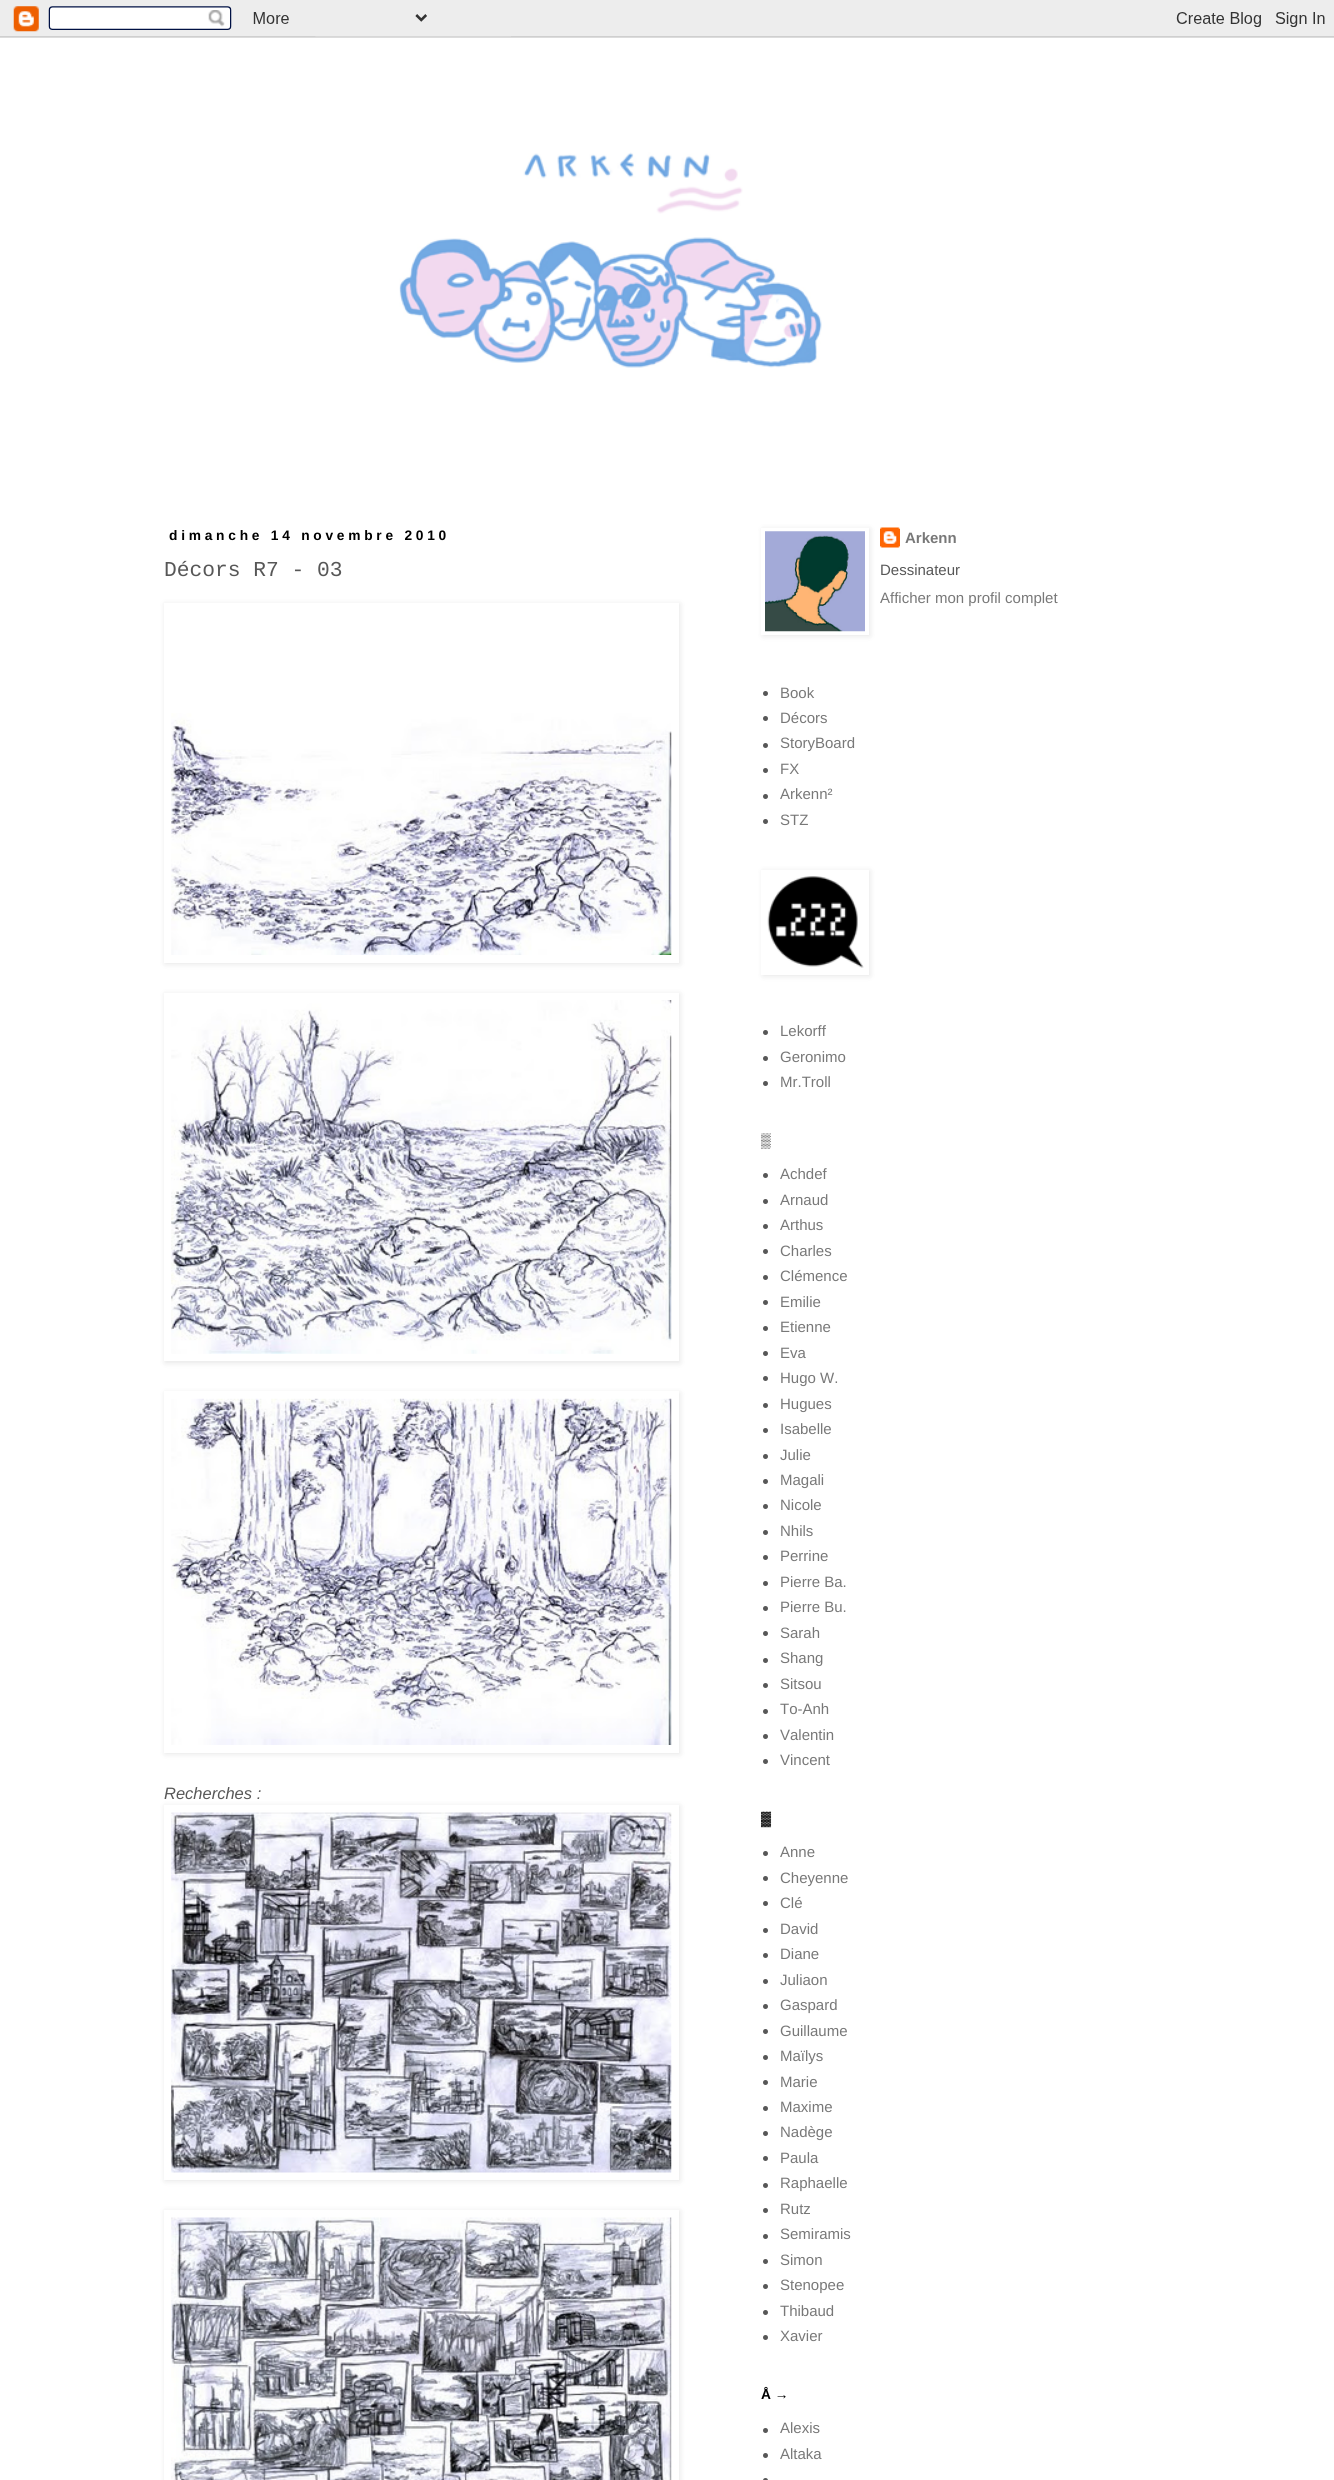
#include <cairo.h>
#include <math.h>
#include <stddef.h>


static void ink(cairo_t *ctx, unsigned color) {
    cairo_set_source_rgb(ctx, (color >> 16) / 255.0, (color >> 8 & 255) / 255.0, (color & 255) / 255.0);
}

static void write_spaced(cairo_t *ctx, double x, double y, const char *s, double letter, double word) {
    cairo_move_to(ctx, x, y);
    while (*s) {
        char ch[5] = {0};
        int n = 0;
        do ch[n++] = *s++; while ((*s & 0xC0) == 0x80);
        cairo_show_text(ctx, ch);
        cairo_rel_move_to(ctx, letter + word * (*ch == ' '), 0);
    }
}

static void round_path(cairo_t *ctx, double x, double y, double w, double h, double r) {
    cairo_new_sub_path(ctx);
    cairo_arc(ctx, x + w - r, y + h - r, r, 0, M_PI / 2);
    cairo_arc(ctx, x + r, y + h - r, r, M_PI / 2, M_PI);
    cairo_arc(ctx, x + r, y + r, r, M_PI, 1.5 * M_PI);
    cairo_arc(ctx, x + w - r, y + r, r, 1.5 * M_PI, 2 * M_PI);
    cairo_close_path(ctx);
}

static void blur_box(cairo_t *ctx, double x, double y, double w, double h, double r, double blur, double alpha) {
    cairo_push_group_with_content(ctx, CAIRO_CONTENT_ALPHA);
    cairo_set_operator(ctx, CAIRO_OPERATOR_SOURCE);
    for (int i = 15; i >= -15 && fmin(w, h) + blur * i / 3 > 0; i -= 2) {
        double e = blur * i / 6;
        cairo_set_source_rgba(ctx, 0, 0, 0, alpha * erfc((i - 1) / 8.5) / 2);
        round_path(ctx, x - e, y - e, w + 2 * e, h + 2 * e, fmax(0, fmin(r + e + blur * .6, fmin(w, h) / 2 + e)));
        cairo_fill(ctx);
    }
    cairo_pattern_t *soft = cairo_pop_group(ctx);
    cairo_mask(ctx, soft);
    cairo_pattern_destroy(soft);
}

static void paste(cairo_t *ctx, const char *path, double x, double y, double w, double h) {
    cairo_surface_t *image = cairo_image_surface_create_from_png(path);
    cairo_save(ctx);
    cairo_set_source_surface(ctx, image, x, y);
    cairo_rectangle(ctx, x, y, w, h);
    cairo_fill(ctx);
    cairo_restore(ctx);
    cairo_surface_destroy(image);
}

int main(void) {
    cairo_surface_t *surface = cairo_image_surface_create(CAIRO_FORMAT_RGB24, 1334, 2480);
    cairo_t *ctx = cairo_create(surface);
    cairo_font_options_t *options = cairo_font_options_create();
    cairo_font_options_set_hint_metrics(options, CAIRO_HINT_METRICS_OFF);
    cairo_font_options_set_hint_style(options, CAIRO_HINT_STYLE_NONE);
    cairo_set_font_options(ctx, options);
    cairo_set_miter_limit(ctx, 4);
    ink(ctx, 0xFFFFFF);
    cairo_paint(ctx);
    paste(ctx, "media/1.png", 0, 0, 1334, 38);
    paste(ctx, "media/2.png", 399, 152, 423, 216);
    cairo_select_font_face(ctx, "Liberation Sans", CAIRO_FONT_SLANT_NORMAL, CAIRO_FONT_WEIGHT_BOLD);
    cairo_set_font_size(ctx, 13.75);
    ink(ctx, 0x000000);
    write_spaced(ctx, 169, 540, "dimanche 14 novembre 2010", 3.75, 0);
    cairo_select_font_face(ctx, "Liberation Mono", CAIRO_FONT_SLANT_NORMAL, CAIRO_FONT_WEIGHT_NORMAL);
    cairo_set_font_size(ctx, 21.25);
    ink(ctx, 0x575757);
    cairo_move_to(ctx, 164, 576);
    cairo_show_text(ctx, "Décors R7 - 03");
    cairo_save(ctx);
    cairo_set_fill_rule(ctx, CAIRO_FILL_RULE_EVEN_ODD);
    cairo_new_path(ctx);
    cairo_move_to(ctx, 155, 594);
    cairo_line_to(ctx, 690, 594);
    cairo_line_to(ctx, 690, 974);
    cairo_line_to(ctx, 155, 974);
    cairo_close_path(ctx);
    cairo_move_to(ctx, 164, 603);
    cairo_line_to(ctx, 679, 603);
    cairo_line_to(ctx, 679, 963);
    cairo_line_to(ctx, 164, 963);
    cairo_close_path(ctx);
    cairo_clip(ctx);
    ink(ctx, 0x000000);
    blur_box(ctx, 165, 604, 515, 360, 0, 3, 0.1);
    cairo_restore(ctx);
    paste(ctx, "media/3.png", 171, 713, 501, 242);
    cairo_save(ctx);
    cairo_set_fill_rule(ctx, CAIRO_FILL_RULE_EVEN_ODD);
    cairo_new_path(ctx);
    cairo_move_to(ctx, 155, 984);
    cairo_line_to(ctx, 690, 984);
    cairo_line_to(ctx, 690, 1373);
    cairo_line_to(ctx, 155, 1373);
    cairo_close_path(ctx);
    cairo_move_to(ctx, 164, 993);
    cairo_line_to(ctx, 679, 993);
    cairo_line_to(ctx, 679, 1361);
    cairo_line_to(ctx, 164, 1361);
    cairo_close_path(ctx);
    cairo_clip(ctx);
    ink(ctx, 0x000000);
    blur_box(ctx, 165, 994, 515, 369, 0, 3, 0.1);
    cairo_restore(ctx);
    paste(ctx, "media/4.png", 171, 1000, 501, 354);
    cairo_save(ctx);
    cairo_set_fill_rule(ctx, CAIRO_FILL_RULE_EVEN_ODD);
    cairo_new_path(ctx);
    cairo_move_to(ctx, 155, 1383);
    cairo_line_to(ctx, 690, 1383);
    cairo_line_to(ctx, 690, 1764);
    cairo_line_to(ctx, 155, 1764);
    cairo_close_path(ctx);
    cairo_move_to(ctx, 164, 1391);
    cairo_line_to(ctx, 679, 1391);
    cairo_line_to(ctx, 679, 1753);
    cairo_line_to(ctx, 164, 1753);
    cairo_close_path(ctx);
    cairo_clip(ctx);
    ink(ctx, 0x000000);
    blur_box(ctx, 165, 1393, 515, 361, 0, 3, 0.1);
    cairo_restore(ctx);
    paste(ctx, "media/5.png", 171, 1398, 501, 347);
    cairo_select_font_face(ctx, "Liberation Sans", CAIRO_FONT_SLANT_ITALIC, CAIRO_FONT_WEIGHT_NORMAL);
    cairo_set_font_size(ctx, 16.5);
    cairo_move_to(ctx, 164, 1799);
    cairo_show_text(ctx, "Recherches :");
    cairo_save(ctx);
    cairo_set_fill_rule(ctx, CAIRO_FILL_RULE_EVEN_ODD);
    cairo_new_path(ctx);
    cairo_move_to(ctx, 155, 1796);
    cairo_line_to(ctx, 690, 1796);
    cairo_line_to(ctx, 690, 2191);
    cairo_line_to(ctx, 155, 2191);
    cairo_close_path(ctx);
    cairo_move_to(ctx, 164, 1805);
    cairo_line_to(ctx, 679, 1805);
    cairo_line_to(ctx, 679, 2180);
    cairo_line_to(ctx, 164, 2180);
    cairo_close_path(ctx);
    cairo_clip(ctx);
    ink(ctx, 0x000000);
    blur_box(ctx, 165, 1806, 515, 375, 0, 3, 0.1);
    cairo_restore(ctx);
    paste(ctx, "media/6.png", 171, 1812, 501, 361);
    cairo_save(ctx);
    cairo_set_fill_rule(ctx, CAIRO_FILL_RULE_EVEN_ODD);
    cairo_new_path(ctx);
    cairo_move_to(ctx, 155, 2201);
    cairo_line_to(ctx, 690, 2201);
    cairo_line_to(ctx, 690, 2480);
    cairo_line_to(ctx, 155, 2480);
    cairo_close_path(ctx);
    cairo_move_to(ctx, 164, 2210);
    cairo_line_to(ctx, 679, 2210);
    cairo_line_to(ctx, 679, 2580);
    cairo_line_to(ctx, 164, 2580);
    cairo_close_path(ctx);
    cairo_clip(ctx);
    ink(ctx, 0x000000);
    blur_box(ctx, 165, 2211, 515, 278, 0, 3, 0.1);
    cairo_restore(ctx);
    paste(ctx, "media/7.png", 171, 2217, 501, 263);
    cairo_save(ctx);
    cairo_set_fill_rule(ctx, CAIRO_FILL_RULE_EVEN_ODD);
    cairo_new_path(ctx);
    cairo_move_to(ctx, 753, 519);
    cairo_line_to(ctx, 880, 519);
    cairo_line_to(ctx, 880, 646);
    cairo_line_to(ctx, 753, 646);
    cairo_close_path(ctx);
    cairo_move_to(ctx, 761, 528);
    cairo_line_to(ctx, 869, 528);
    cairo_line_to(ctx, 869, 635);
    cairo_line_to(ctx, 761, 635);
    cairo_close_path(ctx);
    cairo_clip(ctx);
    ink(ctx, 0x000000);
    blur_box(ctx, 763, 529, 107, 107, 0, 3, 0.1);
    cairo_restore(ctx);
    paste(ctx, "media/8.png", 765, 531, 100, 101);
    paste(ctx, "media/9.png", 880, 527, 20, 21);
    cairo_select_font_face(ctx, "Liberation Sans", CAIRO_FONT_SLANT_NORMAL, CAIRO_FONT_WEIGHT_BOLD);
    cairo_set_font_size(ctx, 15);
    ink(ctx, 0x787878);
    cairo_move_to(ctx, 905, 543);
    cairo_show_text(ctx, "Arkenn");
    cairo_select_font_face(ctx, "Liberation Sans", CAIRO_FONT_SLANT_NORMAL, CAIRO_FONT_WEIGHT_NORMAL);
    ink(ctx, 0x575757);
    cairo_move_to(ctx, 880, 575);
    cairo_show_text(ctx, "Dessinateur");
    ink(ctx, 0x787878);
    cairo_move_to(ctx, 880, 603);
    cairo_show_text(ctx, "Afficher mon profil complet");
    ink(ctx, 0x575757);
    cairo_new_path(ctx);
    cairo_arc(ctx, 765.5, 693.5, 2.5, 0, 2 * M_PI);
    cairo_fill(ctx);
    ink(ctx, 0x787878);
    cairo_move_to(ctx, 780, 698);
    cairo_show_text(ctx, "Book");
    ink(ctx, 0x575757);
    cairo_new_path(ctx);
    cairo_arc(ctx, 765.5, 718.5, 2.5, 0, 2 * M_PI);
    cairo_fill(ctx);
    ink(ctx, 0x787878);
    cairo_move_to(ctx, 780, 723);
    cairo_show_text(ctx, "Décors");
    ink(ctx, 0x575757);
    cairo_new_path(ctx);
    cairo_arc(ctx, 765.5, 745.5, 2.5, 0, 2 * M_PI);
    cairo_fill(ctx);
    ink(ctx, 0x787878);
    cairo_move_to(ctx, 780, 748);
    cairo_show_text(ctx, "StoryBoard");
    ink(ctx, 0x575757);
    cairo_new_path(ctx);
    cairo_arc(ctx, 765.5, 770.5, 2.5, 0, 2 * M_PI);
    cairo_fill(ctx);
    ink(ctx, 0x787878);
    cairo_move_to(ctx, 780, 774);
    cairo_show_text(ctx, "FX");
    ink(ctx, 0x575757);
    cairo_new_path(ctx);
    cairo_arc(ctx, 765.5, 796.5, 2.5, 0, 2 * M_PI);
    cairo_fill(ctx);
    ink(ctx, 0x787878);
    cairo_move_to(ctx, 780, 799);
    cairo_show_text(ctx, "Arkenn²");
    ink(ctx, 0x575757);
    cairo_new_path(ctx);
    cairo_arc(ctx, 765.5, 821.5, 2.5, 0, 2 * M_PI);
    cairo_fill(ctx);
    ink(ctx, 0x787878);
    cairo_move_to(ctx, 780, 825);
    cairo_show_text(ctx, "STZ");
    cairo_save(ctx);
    cairo_set_fill_rule(ctx, CAIRO_FILL_RULE_EVEN_ODD);
    cairo_new_path(ctx);
    cairo_move_to(ctx, 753, 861);
    cairo_line_to(ctx, 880, 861);
    cairo_line_to(ctx, 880, 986);
    cairo_line_to(ctx, 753, 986);
    cairo_close_path(ctx);
    cairo_move_to(ctx, 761, 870);
    cairo_line_to(ctx, 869, 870);
    cairo_line_to(ctx, 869, 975);
    cairo_line_to(ctx, 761, 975);
    cairo_close_path(ctx);
    cairo_clip(ctx);
    ink(ctx, 0x000000);
    blur_box(ctx, 763, 871, 107, 105, 0, 3, 0.1);
    cairo_restore(ctx);
    paste(ctx, "media/10.png", 767, 876, 97, 92);
    ink(ctx, 0x575757);
    cairo_arc(ctx, 765.5, 1032.5, 2.5, 0, 2 * M_PI);
    cairo_fill(ctx);
    ink(ctx, 0x787878);
    cairo_move_to(ctx, 780, 1036);
    cairo_show_text(ctx, "Lekorff");
    ink(ctx, 0x575757);
    cairo_new_path(ctx);
    cairo_arc(ctx, 765.5, 1058.5, 2.5, 0, 2 * M_PI);
    cairo_fill(ctx);
    ink(ctx, 0x787878);
    cairo_move_to(ctx, 780, 1062);
    cairo_show_text(ctx, "Geronimo");
    ink(ctx, 0x575757);
    cairo_new_path(ctx);
    cairo_arc(ctx, 765.5, 1083.5, 2.5, 0, 2 * M_PI);
    cairo_fill(ctx);
    ink(ctx, 0x787878);
    cairo_move_to(ctx, 780, 1087);
    cairo_show_text(ctx, "Mr.Troll");
    cairo_select_font_face(ctx, "Liberation Sans", CAIRO_FONT_SLANT_NORMAL, CAIRO_FONT_WEIGHT_BOLD);
    cairo_set_font_size(ctx, 13.75);
    ink(ctx, 0x000000);
    cairo_move_to(ctx, 761, 1145);
    cairo_show_text(ctx, "▒");
    ink(ctx, 0x575757);
    cairo_new_path(ctx);
    cairo_arc(ctx, 765.5, 1175.5, 2.5, 0, 2 * M_PI);
    cairo_fill(ctx);
    cairo_select_font_face(ctx, "Liberation Sans", CAIRO_FONT_SLANT_NORMAL, CAIRO_FONT_WEIGHT_NORMAL);
    cairo_set_font_size(ctx, 15);
    ink(ctx, 0x787878);
    cairo_move_to(ctx, 780, 1179);
    cairo_show_text(ctx, "Achdef");
    ink(ctx, 0x575757);
    cairo_new_path(ctx);
    cairo_arc(ctx, 765.5, 1201.5, 2.5, 0, 2 * M_PI);
    cairo_fill(ctx);
    ink(ctx, 0x787878);
    cairo_move_to(ctx, 780, 1205);
    cairo_show_text(ctx, "Arnaud");
    ink(ctx, 0x575757);
    cairo_new_path(ctx);
    cairo_arc(ctx, 765.5, 1226.5, 2.5, 0, 2 * M_PI);
    cairo_fill(ctx);
    ink(ctx, 0x787878);
    cairo_move_to(ctx, 780, 1230);
    cairo_show_text(ctx, "Arthus");
    ink(ctx, 0x575757);
    cairo_new_path(ctx);
    cairo_arc(ctx, 765.5, 1251.5, 2.5, 0, 2 * M_PI);
    cairo_fill(ctx);
    ink(ctx, 0x787878);
    cairo_move_to(ctx, 780, 1256);
    cairo_show_text(ctx, "Charles");
    ink(ctx, 0x575757);
    cairo_new_path(ctx);
    cairo_arc(ctx, 765.5, 1277.5, 2.5, 0, 2 * M_PI);
    cairo_fill(ctx);
    ink(ctx, 0x787878);
    cairo_move_to(ctx, 780, 1281);
    cairo_show_text(ctx, "Clémence");
    ink(ctx, 0x575757);
    cairo_new_path(ctx);
    cairo_arc(ctx, 765.5, 1302.5, 2.5, 0, 2 * M_PI);
    cairo_fill(ctx);
    ink(ctx, 0x787878);
    cairo_move_to(ctx, 780, 1307);
    cairo_show_text(ctx, "Emilie");
    ink(ctx, 0x575757);
    cairo_new_path(ctx);
    cairo_arc(ctx, 765.5, 1328.5, 2.5, 0, 2 * M_PI);
    cairo_fill(ctx);
    ink(ctx, 0x787878);
    cairo_move_to(ctx, 780, 1332);
    cairo_show_text(ctx, "Etienne");
    ink(ctx, 0x575757);
    cairo_new_path(ctx);
    cairo_arc(ctx, 765.5, 1353.5, 2.5, 0, 2 * M_PI);
    cairo_fill(ctx);
    ink(ctx, 0x787878);
    cairo_move_to(ctx, 780, 1358);
    cairo_show_text(ctx, "Eva");
    ink(ctx, 0x575757);
    cairo_new_path(ctx);
    cairo_arc(ctx, 765.5, 1378.5, 2.5, 0, 2 * M_PI);
    cairo_fill(ctx);
    ink(ctx, 0x787878);
    cairo_move_to(ctx, 780, 1383);
    cairo_show_text(ctx, "Hugo W.");
    ink(ctx, 0x575757);
    cairo_new_path(ctx);
    cairo_arc(ctx, 765.5, 1405.5, 2.5, 0, 2 * M_PI);
    cairo_fill(ctx);
    ink(ctx, 0x787878);
    cairo_move_to(ctx, 780, 1409);
    cairo_show_text(ctx, "Hugues");
    ink(ctx, 0x575757);
    cairo_new_path(ctx);
    cairo_arc(ctx, 765.5, 1430.5, 2.5, 0, 2 * M_PI);
    cairo_fill(ctx);
    ink(ctx, 0x787878);
    cairo_move_to(ctx, 780, 1434);
    cairo_show_text(ctx, "Isabelle");
    ink(ctx, 0x575757);
    cairo_new_path(ctx);
    cairo_arc(ctx, 765.5, 1456.5, 2.5, 0, 2 * M_PI);
    cairo_fill(ctx);
    ink(ctx, 0x787878);
    cairo_move_to(ctx, 780, 1460);
    cairo_show_text(ctx, "Julie");
    ink(ctx, 0x575757);
    cairo_new_path(ctx);
    cairo_arc(ctx, 765.5, 1481.5, 2.5, 0, 2 * M_PI);
    cairo_fill(ctx);
    ink(ctx, 0x787878);
    cairo_move_to(ctx, 780, 1485);
    cairo_show_text(ctx, "Magali");
    ink(ctx, 0x575757);
    cairo_new_path(ctx);
    cairo_arc(ctx, 765.5, 1506.5, 2.5, 0, 2 * M_PI);
    cairo_fill(ctx);
    ink(ctx, 0x787878);
    cairo_move_to(ctx, 780, 1510);
    cairo_show_text(ctx, "Nicole");
    ink(ctx, 0x575757);
    cairo_new_path(ctx);
    cairo_arc(ctx, 765.5, 1532.5, 2.5, 0, 2 * M_PI);
    cairo_fill(ctx);
    ink(ctx, 0x787878);
    cairo_move_to(ctx, 780, 1536);
    cairo_show_text(ctx, "Nhils");
    ink(ctx, 0x575757);
    cairo_new_path(ctx);
    cairo_arc(ctx, 765.5, 1557.5, 2.5, 0, 2 * M_PI);
    cairo_fill(ctx);
    ink(ctx, 0x787878);
    cairo_move_to(ctx, 780, 1561);
    cairo_show_text(ctx, "Perrine");
    ink(ctx, 0x575757);
    cairo_new_path(ctx);
    cairo_arc(ctx, 765.5, 1583.5, 2.5, 0, 2 * M_PI);
    cairo_fill(ctx);
    ink(ctx, 0x787878);
    cairo_move_to(ctx, 780, 1587);
    cairo_show_text(ctx, "Pierre Ba.");
    ink(ctx, 0x575757);
    cairo_new_path(ctx);
    cairo_arc(ctx, 765.5, 1608.5, 2.5, 0, 2 * M_PI);
    cairo_fill(ctx);
    ink(ctx, 0x787878);
    cairo_move_to(ctx, 780, 1612);
    cairo_show_text(ctx, "Pierre Bu.");
    ink(ctx, 0x575757);
    cairo_new_path(ctx);
    cairo_arc(ctx, 765.5, 1633.5, 2.5, 0, 2 * M_PI);
    cairo_fill(ctx);
    ink(ctx, 0x787878);
    cairo_move_to(ctx, 780, 1638);
    cairo_show_text(ctx, "Sarah");
    ink(ctx, 0x575757);
    cairo_new_path(ctx);
    cairo_arc(ctx, 765.5, 1660.5, 2.5, 0, 2 * M_PI);
    cairo_fill(ctx);
    ink(ctx, 0x787878);
    cairo_move_to(ctx, 780, 1663);
    cairo_show_text(ctx, "Shang");
    ink(ctx, 0x575757);
    cairo_new_path(ctx);
    cairo_arc(ctx, 765.5, 1685.5, 2.5, 0, 2 * M_PI);
    cairo_fill(ctx);
    ink(ctx, 0x787878);
    cairo_move_to(ctx, 780, 1689);
    cairo_show_text(ctx, "Sitsou");
    ink(ctx, 0x575757);
    cairo_new_path(ctx);
    cairo_arc(ctx, 765.5, 1711.5, 2.5, 0, 2 * M_PI);
    cairo_fill(ctx);
    ink(ctx, 0x787878);
    cairo_move_to(ctx, 780, 1714);
    cairo_show_text(ctx, "To-Anh");
    ink(ctx, 0x575757);
    cairo_new_path(ctx);
    cairo_arc(ctx, 765.5, 1736.5, 2.5, 0, 2 * M_PI);
    cairo_fill(ctx);
    ink(ctx, 0x787878);
    cairo_move_to(ctx, 780, 1740);
    cairo_show_text(ctx, "Valentin");
    ink(ctx, 0x575757);
    cairo_new_path(ctx);
    cairo_arc(ctx, 765.5, 1761.5, 2.5, 0, 2 * M_PI);
    cairo_fill(ctx);
    ink(ctx, 0x787878);
    cairo_move_to(ctx, 780, 1765);
    cairo_show_text(ctx, "Vincent");
    cairo_select_font_face(ctx, "Liberation Sans", CAIRO_FONT_SLANT_NORMAL, CAIRO_FONT_WEIGHT_BOLD);
    cairo_set_font_size(ctx, 13.75);
    ink(ctx, 0x000000);
    cairo_move_to(ctx, 761, 1823);
    cairo_show_text(ctx, "▓");
    ink(ctx, 0x575757);
    cairo_new_path(ctx);
    cairo_arc(ctx, 765.5, 1853.5, 2.5, 0, 2 * M_PI);
    cairo_fill(ctx);
    cairo_select_font_face(ctx, "Liberation Sans", CAIRO_FONT_SLANT_NORMAL, CAIRO_FONT_WEIGHT_NORMAL);
    cairo_set_font_size(ctx, 15);
    ink(ctx, 0x787878);
    cairo_move_to(ctx, 780, 1857);
    cairo_show_text(ctx, "Anne");
    ink(ctx, 0x575757);
    cairo_new_path(ctx);
    cairo_arc(ctx, 765.5, 1878.5, 2.5, 0, 2 * M_PI);
    cairo_fill(ctx);
    ink(ctx, 0x787878);
    cairo_move_to(ctx, 780, 1883);
    cairo_show_text(ctx, "Cheyenne");
    ink(ctx, 0x575757);
    cairo_new_path(ctx);
    cairo_arc(ctx, 765.5, 1903.5, 2.5, 0, 2 * M_PI);
    cairo_fill(ctx);
    ink(ctx, 0x787878);
    cairo_move_to(ctx, 780, 1908);
    cairo_show_text(ctx, "Clé");
    ink(ctx, 0x575757);
    cairo_new_path(ctx);
    cairo_arc(ctx, 765.5, 1930.5, 2.5, 0, 2 * M_PI);
    cairo_fill(ctx);
    ink(ctx, 0x787878);
    cairo_move_to(ctx, 780, 1934);
    cairo_show_text(ctx, "David");
    ink(ctx, 0x575757);
    cairo_new_path(ctx);
    cairo_arc(ctx, 765.5, 1955.5, 2.5, 0, 2 * M_PI);
    cairo_fill(ctx);
    ink(ctx, 0x787878);
    cairo_move_to(ctx, 780, 1959);
    cairo_show_text(ctx, "Diane");
    ink(ctx, 0x575757);
    cairo_new_path(ctx);
    cairo_arc(ctx, 765.5, 1981.5, 2.5, 0, 2 * M_PI);
    cairo_fill(ctx);
    ink(ctx, 0x787878);
    cairo_move_to(ctx, 780, 1985);
    cairo_show_text(ctx, "Juliaon");
    ink(ctx, 0x575757);
    cairo_new_path(ctx);
    cairo_arc(ctx, 765.5, 2006.5, 2.5, 0, 2 * M_PI);
    cairo_fill(ctx);
    ink(ctx, 0x787878);
    cairo_move_to(ctx, 780, 2010);
    cairo_show_text(ctx, "Gaspard");
    ink(ctx, 0x575757);
    cairo_new_path(ctx);
    cairo_arc(ctx, 765.5, 2031.5, 2.5, 0, 2 * M_PI);
    cairo_fill(ctx);
    ink(ctx, 0x787878);
    cairo_move_to(ctx, 780, 2036);
    cairo_show_text(ctx, "Guillaume");
    ink(ctx, 0x575757);
    cairo_new_path(ctx);
    cairo_arc(ctx, 765.5, 2057.5, 2.5, 0, 2 * M_PI);
    cairo_fill(ctx);
    ink(ctx, 0x787878);
    cairo_move_to(ctx, 780, 2061);
    cairo_show_text(ctx, "Maïlys");
    ink(ctx, 0x575757);
    cairo_new_path(ctx);
    cairo_arc(ctx, 765.5, 2082.5, 2.5, 0, 2 * M_PI);
    cairo_fill(ctx);
    ink(ctx, 0x787878);
    cairo_move_to(ctx, 780, 2087);
    cairo_show_text(ctx, "Marie");
    ink(ctx, 0x575757);
    cairo_new_path(ctx);
    cairo_arc(ctx, 765.5, 2108.5, 2.5, 0, 2 * M_PI);
    cairo_fill(ctx);
    ink(ctx, 0x787878);
    cairo_move_to(ctx, 780, 2112);
    cairo_show_text(ctx, "Maxime");
    ink(ctx, 0x575757);
    cairo_new_path(ctx);
    cairo_arc(ctx, 765.5, 2133.5, 2.5, 0, 2 * M_PI);
    cairo_fill(ctx);
    ink(ctx, 0x787878);
    cairo_move_to(ctx, 780, 2137);
    cairo_show_text(ctx, "Nadège");
    ink(ctx, 0x575757);
    cairo_new_path(ctx);
    cairo_arc(ctx, 765.5, 2158.5, 2.5, 0, 2 * M_PI);
    cairo_fill(ctx);
    ink(ctx, 0x787878);
    cairo_move_to(ctx, 780, 2163);
    cairo_show_text(ctx, "Paula");
    ink(ctx, 0x575757);
    cairo_new_path(ctx);
    cairo_arc(ctx, 765.5, 2185.5, 2.5, 0, 2 * M_PI);
    cairo_fill(ctx);
    ink(ctx, 0x787878);
    cairo_move_to(ctx, 780, 2188);
    cairo_show_text(ctx, "Raphaelle");
    ink(ctx, 0x575757);
    cairo_new_path(ctx);
    cairo_arc(ctx, 765.5, 2210.5, 2.5, 0, 2 * M_PI);
    cairo_fill(ctx);
    ink(ctx, 0x787878);
    cairo_move_to(ctx, 780, 2214);
    cairo_show_text(ctx, "Rutz");
    ink(ctx, 0x575757);
    cairo_new_path(ctx);
    cairo_arc(ctx, 765.5, 2236.5, 2.5, 0, 2 * M_PI);
    cairo_fill(ctx);
    ink(ctx, 0x787878);
    cairo_move_to(ctx, 780, 2239);
    cairo_show_text(ctx, "Semiramis");
    ink(ctx, 0x575757);
    cairo_new_path(ctx);
    cairo_arc(ctx, 765.5, 2261.5, 2.5, 0, 2 * M_PI);
    cairo_fill(ctx);
    ink(ctx, 0x787878);
    cairo_move_to(ctx, 780, 2265);
    cairo_show_text(ctx, "Simon");
    ink(ctx, 0x575757);
    cairo_new_path(ctx);
    cairo_arc(ctx, 765.5, 2286.5, 2.5, 0, 2 * M_PI);
    cairo_fill(ctx);
    ink(ctx, 0x787878);
    cairo_move_to(ctx, 780, 2290);
    cairo_show_text(ctx, "Stenopee");
    ink(ctx, 0x575757);
    cairo_new_path(ctx);
    cairo_arc(ctx, 765.5, 2312.5, 2.5, 0, 2 * M_PI);
    cairo_fill(ctx);
    ink(ctx, 0x787878);
    cairo_move_to(ctx, 780, 2316);
    cairo_show_text(ctx, "Thibaud");
    ink(ctx, 0x575757);
    cairo_new_path(ctx);
    cairo_arc(ctx, 765.5, 2337.5, 2.5, 0, 2 * M_PI);
    cairo_fill(ctx);
    ink(ctx, 0x787878);
    cairo_move_to(ctx, 780, 2341);
    cairo_show_text(ctx, "Xavier");
    cairo_select_font_face(ctx, "Liberation Sans", CAIRO_FONT_SLANT_NORMAL, CAIRO_FONT_WEIGHT_BOLD);
    cairo_set_font_size(ctx, 13.75);
    ink(ctx, 0x000000);
    cairo_move_to(ctx, 761, 2399);
    cairo_show_text(ctx, "Å →");
    ink(ctx, 0x575757);
    cairo_new_path(ctx);
    cairo_arc(ctx, 765.5, 2430.5, 2.5, 0, 2 * M_PI);
    cairo_fill(ctx);
    cairo_select_font_face(ctx, "Liberation Sans", CAIRO_FONT_SLANT_NORMAL, CAIRO_FONT_WEIGHT_NORMAL);
    cairo_set_font_size(ctx, 15);
    ink(ctx, 0x787878);
    cairo_move_to(ctx, 780, 2433);
    cairo_show_text(ctx, "Alexis");
    ink(ctx, 0x575757);
    cairo_new_path(ctx);
    cairo_arc(ctx, 765.5, 2455.5, 2.5, 0, 2 * M_PI);
    cairo_fill(ctx);
    ink(ctx, 0x787878);
    cairo_move_to(ctx, 780, 2459);
    cairo_show_text(ctx, "Altaka");
    ink(ctx, 0x575757);
    cairo_new_path(ctx);
    cairo_arc(ctx, 765.5, 2480.5, 2.5, 0, 2 * M_PI);
    cairo_fill(ctx);
    cairo_surface_write_to_png(surface, "image.png");
    cairo_font_options_destroy(options);
    cairo_destroy(ctx);
    cairo_surface_destroy(surface);
    return 0;
}
